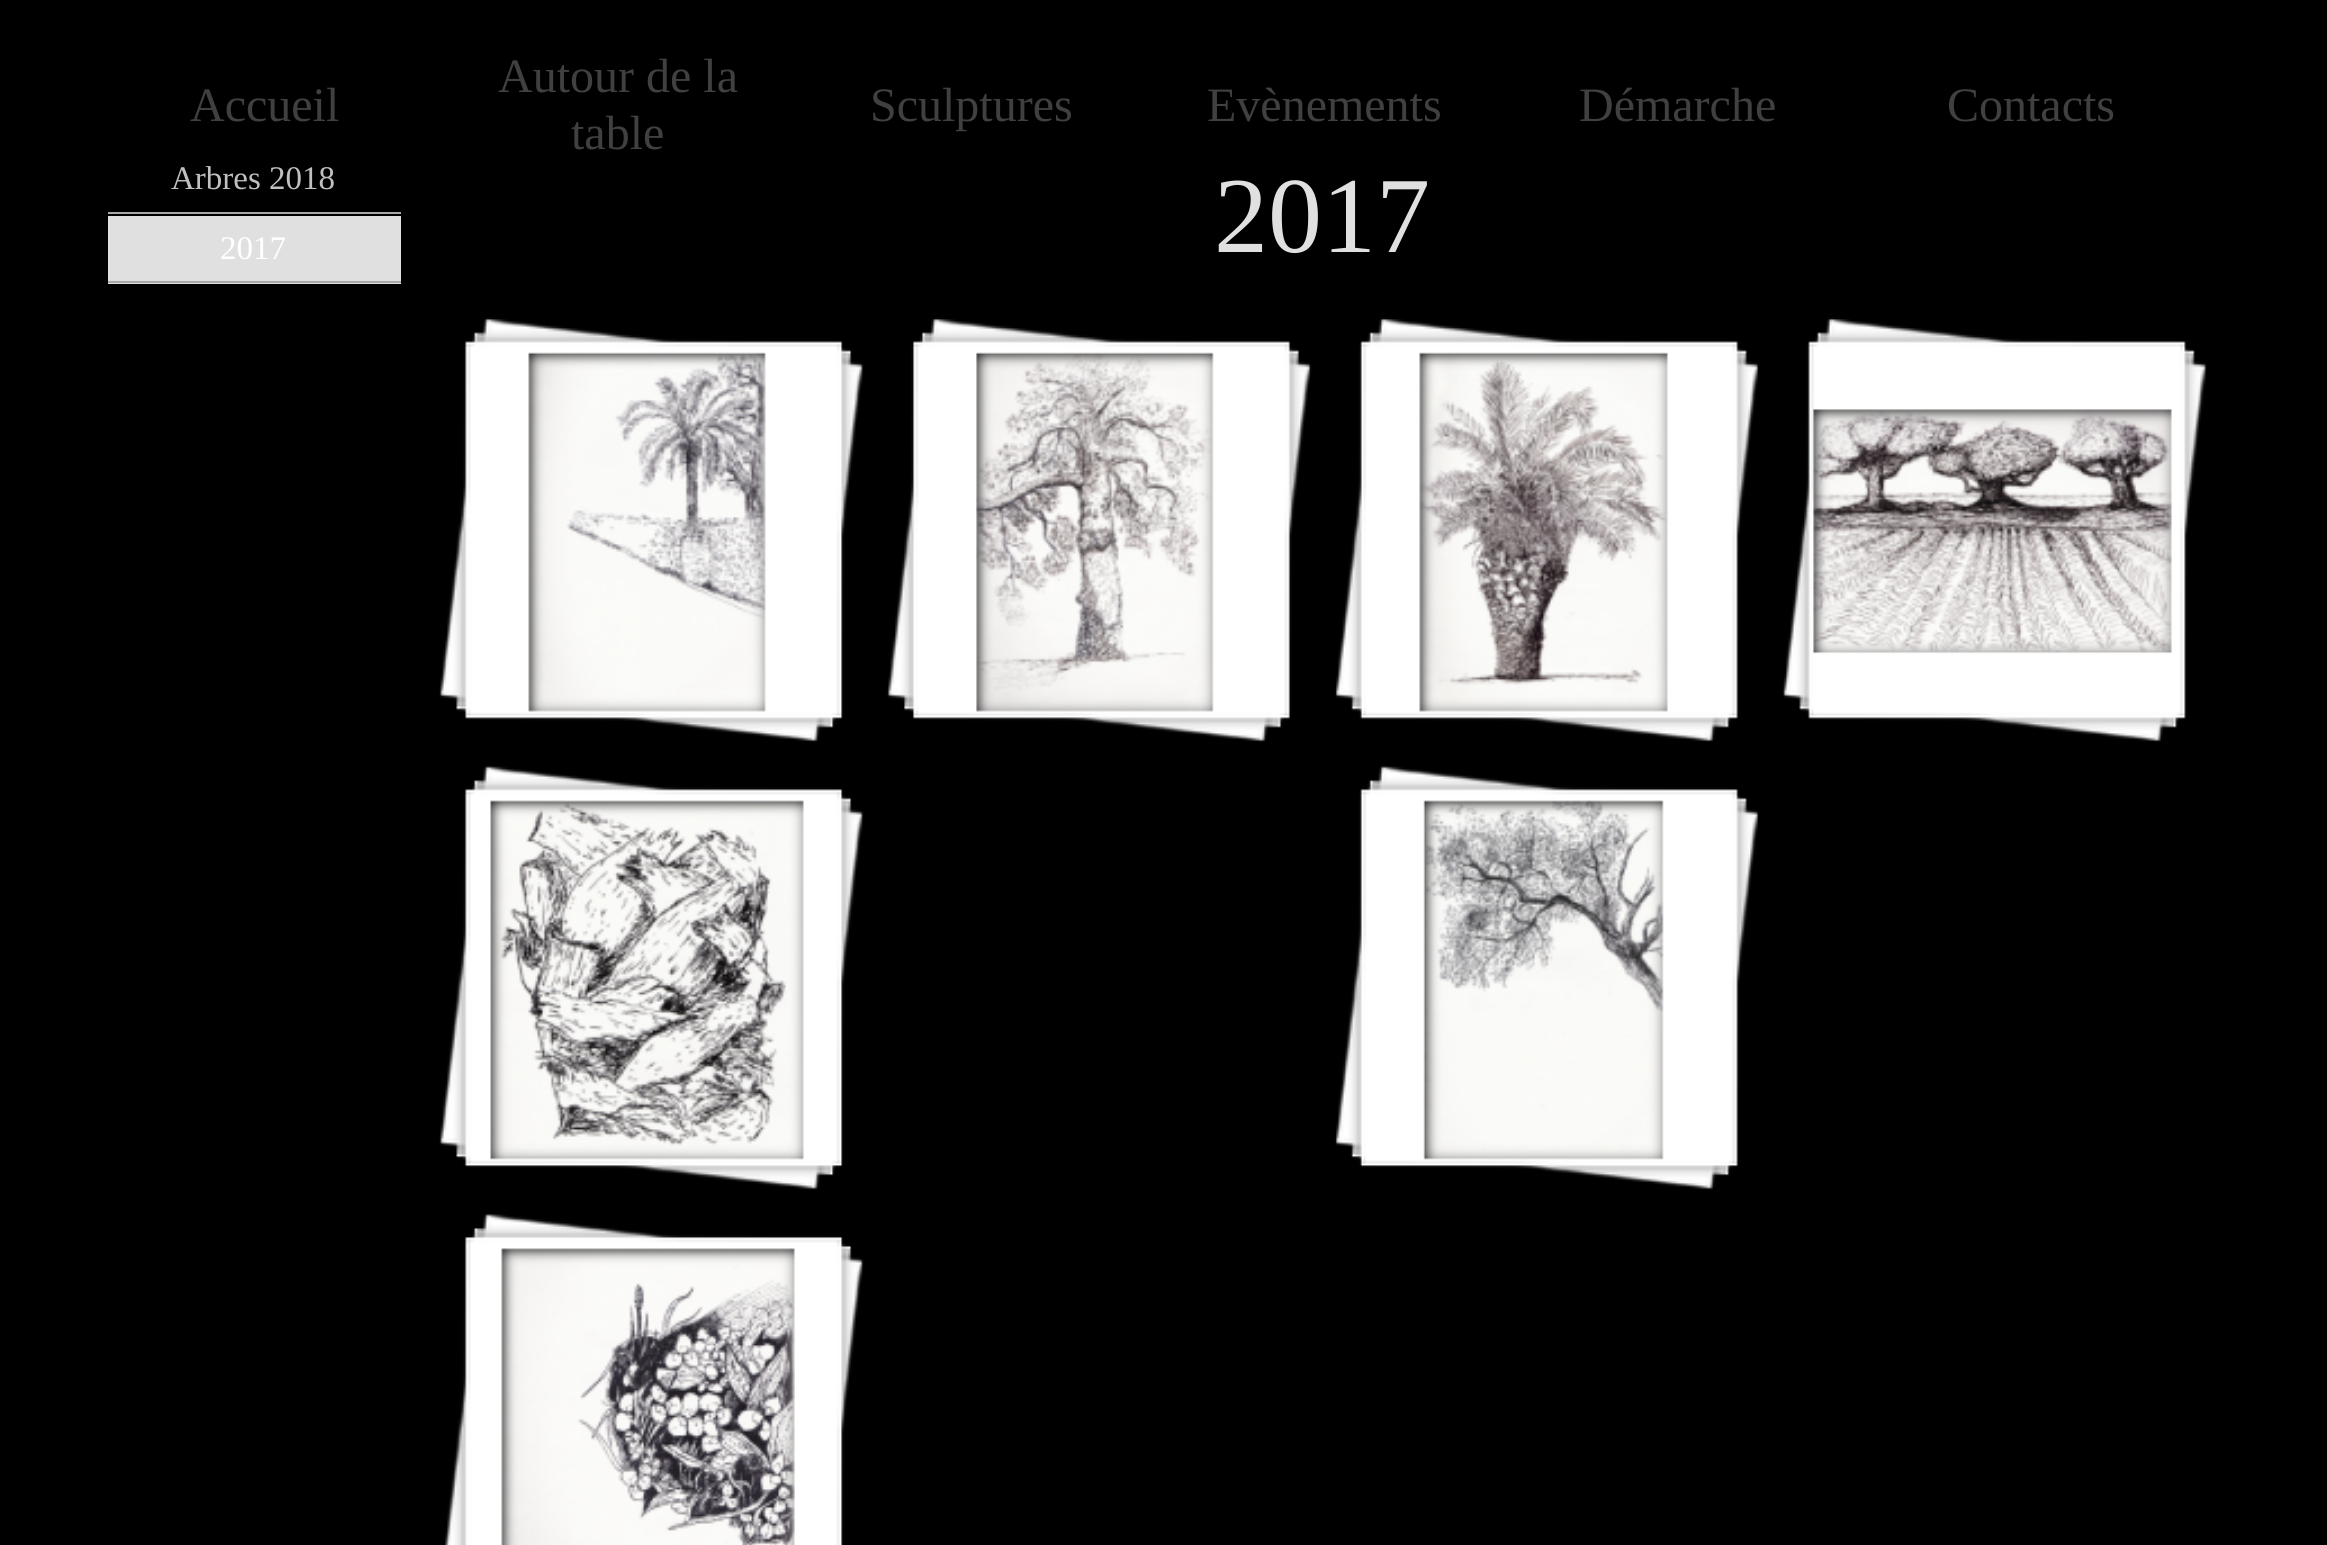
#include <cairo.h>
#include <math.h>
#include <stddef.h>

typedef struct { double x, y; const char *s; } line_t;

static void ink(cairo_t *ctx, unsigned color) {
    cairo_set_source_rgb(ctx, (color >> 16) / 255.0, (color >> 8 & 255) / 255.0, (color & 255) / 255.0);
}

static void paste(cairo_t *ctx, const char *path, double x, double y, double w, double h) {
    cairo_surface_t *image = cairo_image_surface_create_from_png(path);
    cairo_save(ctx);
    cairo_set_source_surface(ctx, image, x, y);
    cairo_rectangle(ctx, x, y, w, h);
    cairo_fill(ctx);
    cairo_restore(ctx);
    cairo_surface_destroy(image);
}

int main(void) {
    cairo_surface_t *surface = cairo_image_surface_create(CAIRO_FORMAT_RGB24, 2327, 1545);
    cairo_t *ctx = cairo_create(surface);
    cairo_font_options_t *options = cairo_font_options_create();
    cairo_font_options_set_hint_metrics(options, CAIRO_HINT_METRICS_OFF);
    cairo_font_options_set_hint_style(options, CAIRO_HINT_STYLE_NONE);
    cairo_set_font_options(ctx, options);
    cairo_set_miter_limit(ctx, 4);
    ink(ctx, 0x000000);
    cairo_paint(ctx);
    cairo_select_font_face(ctx, "Liberation Serif", CAIRO_FONT_SLANT_NORMAL, CAIRO_FONT_WEIGHT_NORMAL);
    cairo_set_font_size(ctx, 48);
    ink(ctx, 0x404040);
    {
        static const line_t items[] = {
            {190, 121, "Accueil"},
            {498, 92, "Autour de la"},
            {571, 149, "table"},
            {870, 121, "Sculptures"},
            {1207, 121, "Evènements"},
            {1579, 121, "Démarche"},
            {1947, 121, "Contacts"},
        };
        for (size_t i = 0; i < sizeof items / sizeof *items; i++) {
            cairo_move_to(ctx, items[i].x, items[i].y);
            cairo_show_text(ctx, items[i].s);
        }
    }
    ink(ctx, 0xA9A9A9);
    cairo_rectangle(ctx, 108, 212, 293, 2);
    cairo_fill(ctx);
    cairo_set_font_size(ctx, 33);
    ink(ctx, 0xC0C0C0);
    cairo_move_to(ctx, 171, 189);
    cairo_show_text(ctx, "Arbres 2018");
    ink(ctx, 0xE0E0E0);
    cairo_rectangle(ctx, 108, 216, 293, 68);
    cairo_fill(ctx);
    ink(ctx, 0xA9A9A9);
    cairo_rectangle(ctx, 108, 281, 293, 2);
    cairo_fill(ctx);
    ink(ctx, 0xFFFFFF);
    cairo_move_to(ctx, 220, 259);
    cairo_show_text(ctx, "2017");
    cairo_set_font_size(ctx, 108);
    ink(ctx, 0xE0E0E0);
    cairo_move_to(ctx, 1214, 252);
    cairo_show_text(ctx, "2017");
    paste(ctx, "media/1.png", 439, 317, 425, 426);
    paste(ctx, "media/2.png", 886, 317, 426, 426);
    paste(ctx, "media/3.png", 1334, 317, 425, 426);
    paste(ctx, "media/4.png", 1782, 317, 425, 426);
    paste(ctx, "media/5.png", 439, 765, 425, 426);
    paste(ctx, "media/6.png", 1334, 765, 425, 426);
    paste(ctx, "media/7.png", 444, 1213, 420, 332);
    cairo_surface_write_to_png(surface, "image.png");
    cairo_font_options_destroy(options);
    cairo_destroy(ctx);
    cairo_surface_destroy(surface);
    return 0;
}
